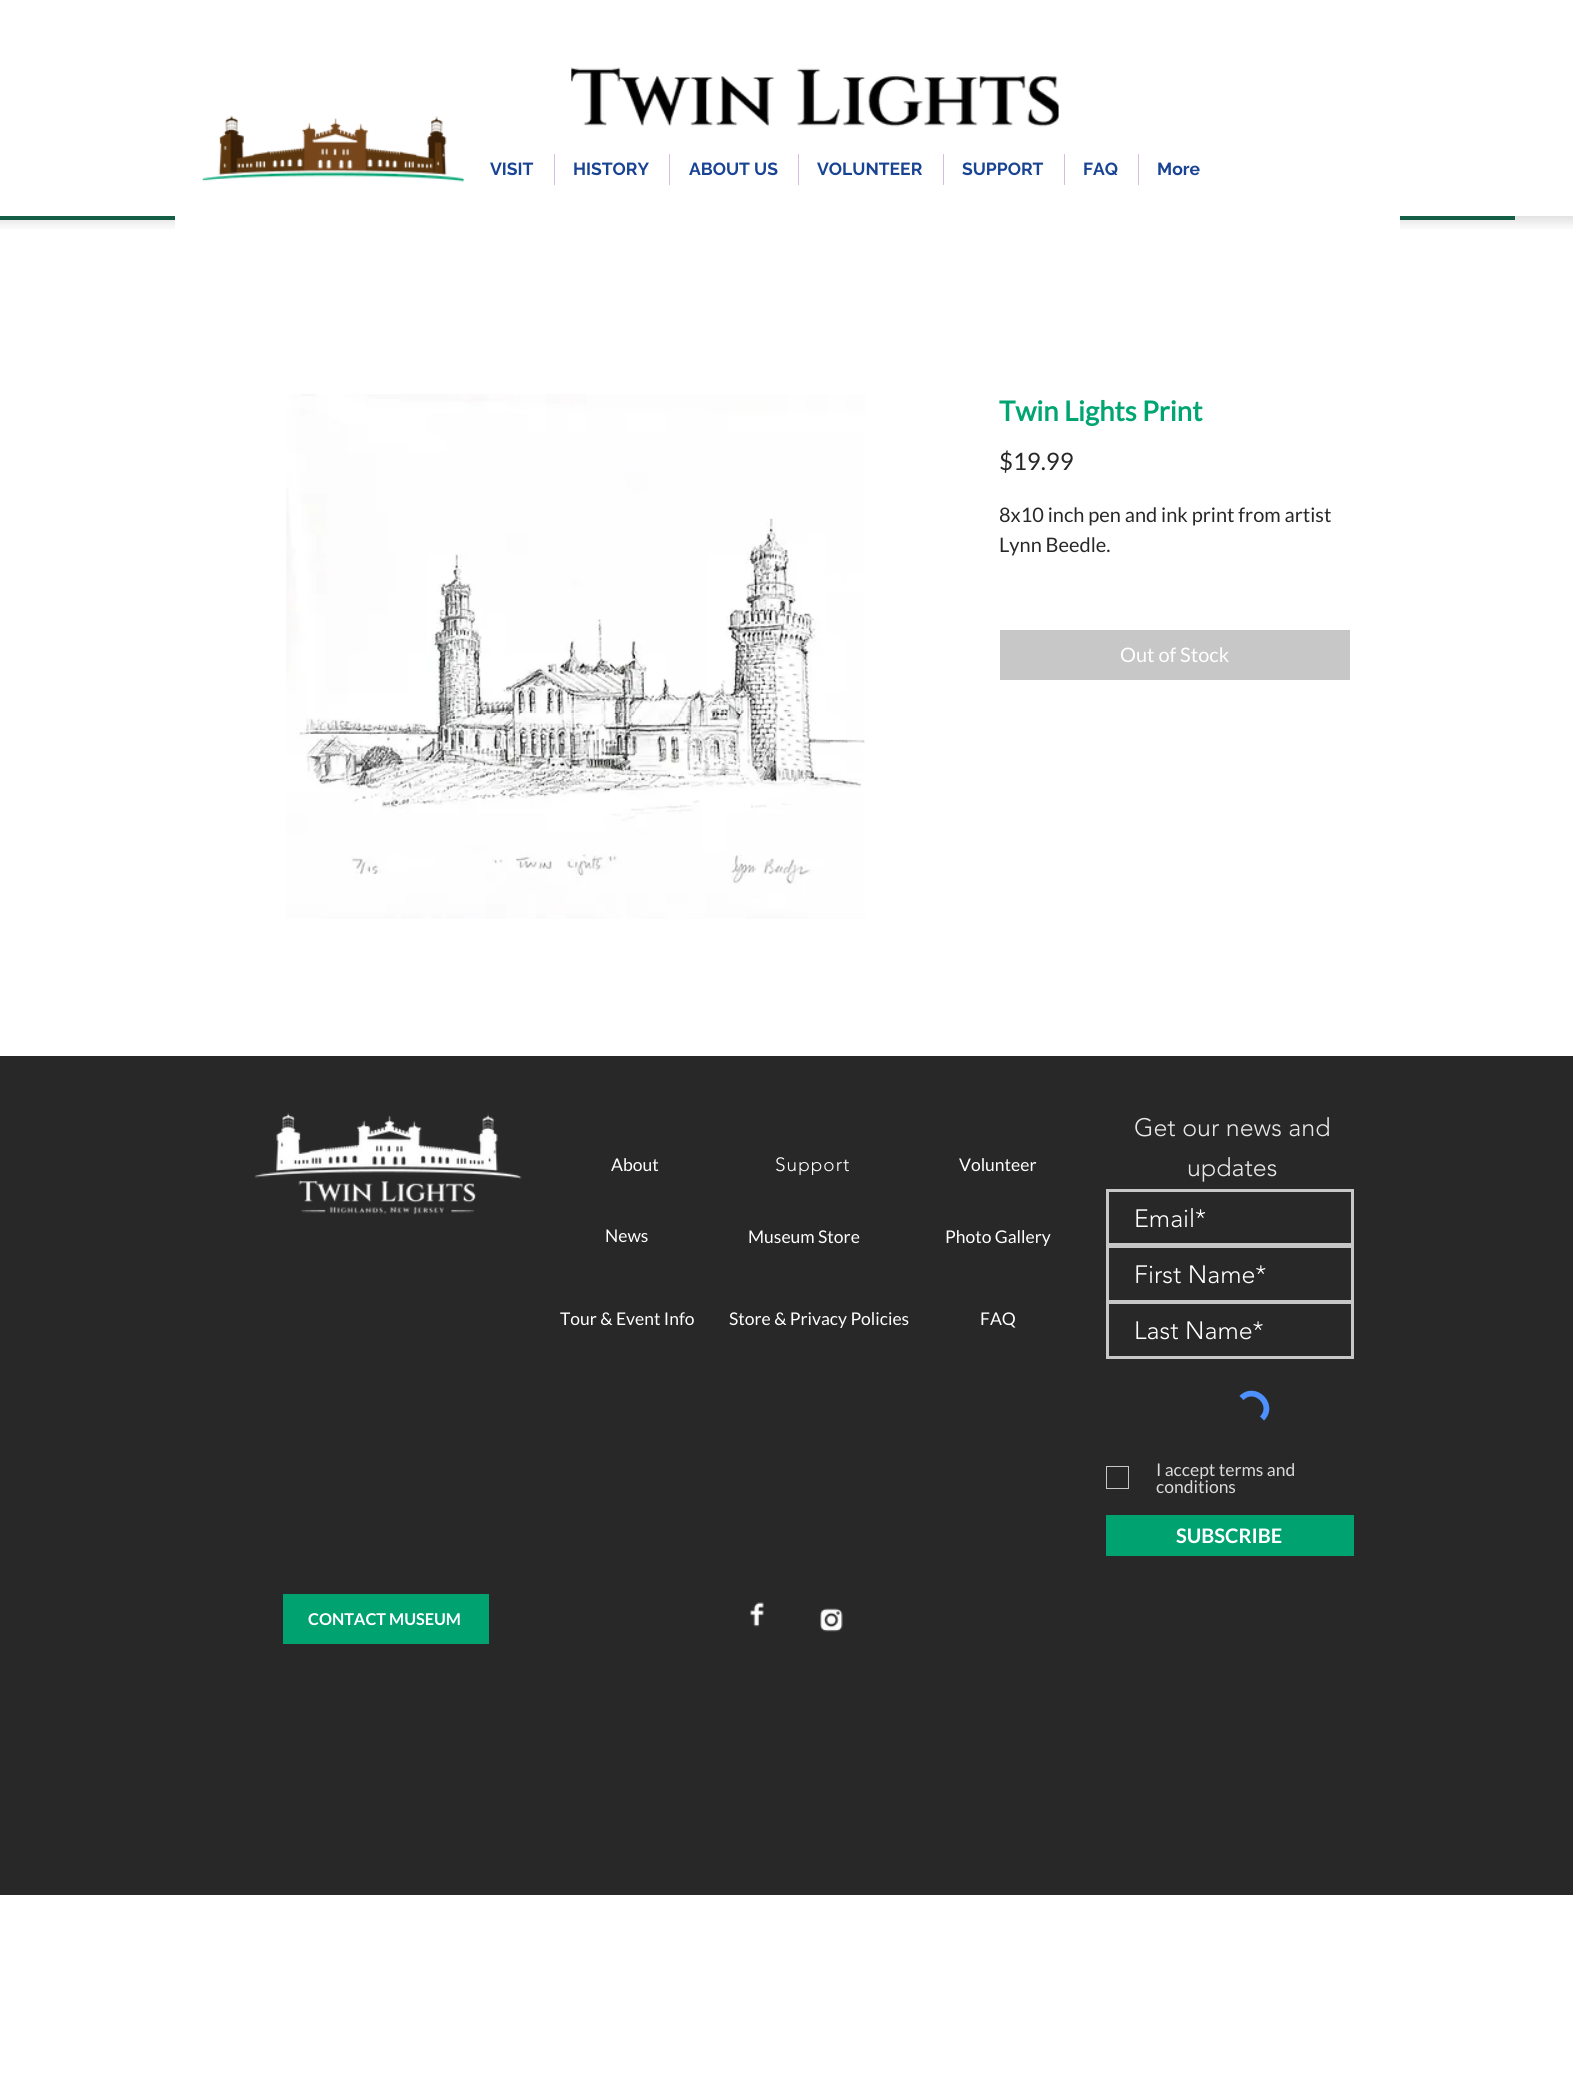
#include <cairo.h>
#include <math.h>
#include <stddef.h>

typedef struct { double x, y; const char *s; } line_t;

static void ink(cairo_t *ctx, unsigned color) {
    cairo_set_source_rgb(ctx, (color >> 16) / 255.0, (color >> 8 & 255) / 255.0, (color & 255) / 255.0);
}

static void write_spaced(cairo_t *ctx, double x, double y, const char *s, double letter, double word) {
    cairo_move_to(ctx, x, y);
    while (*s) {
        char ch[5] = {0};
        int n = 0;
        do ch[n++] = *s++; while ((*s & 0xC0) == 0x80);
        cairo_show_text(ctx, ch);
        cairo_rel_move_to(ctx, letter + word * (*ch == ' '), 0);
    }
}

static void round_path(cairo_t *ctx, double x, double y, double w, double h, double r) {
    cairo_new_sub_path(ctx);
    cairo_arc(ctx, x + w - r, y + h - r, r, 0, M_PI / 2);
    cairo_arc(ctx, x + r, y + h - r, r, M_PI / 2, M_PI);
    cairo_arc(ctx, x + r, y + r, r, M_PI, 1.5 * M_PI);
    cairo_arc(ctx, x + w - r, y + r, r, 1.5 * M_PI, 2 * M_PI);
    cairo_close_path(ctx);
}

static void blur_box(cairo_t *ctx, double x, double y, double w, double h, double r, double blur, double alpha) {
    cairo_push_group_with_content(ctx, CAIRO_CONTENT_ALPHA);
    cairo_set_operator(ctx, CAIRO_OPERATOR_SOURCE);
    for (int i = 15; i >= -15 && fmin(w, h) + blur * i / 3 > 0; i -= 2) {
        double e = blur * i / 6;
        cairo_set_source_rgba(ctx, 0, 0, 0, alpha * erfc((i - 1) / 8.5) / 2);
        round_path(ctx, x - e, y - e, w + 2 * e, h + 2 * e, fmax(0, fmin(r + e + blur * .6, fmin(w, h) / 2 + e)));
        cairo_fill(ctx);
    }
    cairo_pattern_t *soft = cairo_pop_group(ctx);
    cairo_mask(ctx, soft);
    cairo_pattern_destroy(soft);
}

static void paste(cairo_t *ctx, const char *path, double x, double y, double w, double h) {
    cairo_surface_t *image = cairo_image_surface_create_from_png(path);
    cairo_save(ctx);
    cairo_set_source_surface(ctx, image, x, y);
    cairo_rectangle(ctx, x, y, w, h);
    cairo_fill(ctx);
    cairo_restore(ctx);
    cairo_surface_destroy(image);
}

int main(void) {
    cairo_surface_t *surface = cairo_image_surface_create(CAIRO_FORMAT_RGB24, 1573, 2090);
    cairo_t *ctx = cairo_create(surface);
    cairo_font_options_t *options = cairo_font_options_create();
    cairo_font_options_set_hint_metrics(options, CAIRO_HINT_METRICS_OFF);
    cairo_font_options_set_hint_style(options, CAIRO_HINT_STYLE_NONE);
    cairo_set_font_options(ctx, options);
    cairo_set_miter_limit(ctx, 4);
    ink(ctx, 0xFFFFFF);
    cairo_paint(ctx);
    cairo_save(ctx);
    cairo_rectangle(ctx, 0, 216, 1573, 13);
    cairo_clip(ctx);
    ink(ctx, 0x000000);
    blur_box(ctx, -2, 0, 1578, 221, 0, 7, 0.15);
    cairo_restore(ctx);
    paste(ctx, "media/1.png", 571, 67, 488, 60);
    paste(ctx, "media/2.png", 202, 115, 262, 67);
    cairo_select_font_face(ctx, "Raleway", CAIRO_FONT_SLANT_NORMAL, CAIRO_FONT_WEIGHT_BOLD);
    cairo_set_font_size(ctx, 17.5);
    ink(ctx, 0x194393);
    cairo_move_to(ctx, 490, 175);
    cairo_show_text(ctx, "VISIT");
    ink(ctx, 0xD8BDE2);
    cairo_rectangle(ctx, 554, 154, 1, 31);
    cairo_fill(ctx);
    ink(ctx, 0x194393);
    cairo_move_to(ctx, 573, 175);
    cairo_show_text(ctx, "HISTORY");
    ink(ctx, 0xD8BDE2);
    cairo_rectangle(ctx, 669, 154, 1, 31);
    cairo_fill(ctx);
    ink(ctx, 0x194393);
    cairo_move_to(ctx, 689, 175);
    cairo_show_text(ctx, "ABOUT US");
    ink(ctx, 0xD8BDE2);
    cairo_rectangle(ctx, 798, 154, 1, 31);
    cairo_fill(ctx);
    ink(ctx, 0x194393);
    cairo_move_to(ctx, 817, 175);
    cairo_show_text(ctx, "VOLUNTEER");
    ink(ctx, 0xD8BDE2);
    cairo_rectangle(ctx, 943, 154, 1, 31);
    cairo_fill(ctx);
    ink(ctx, 0x194393);
    cairo_move_to(ctx, 962, 175);
    cairo_show_text(ctx, "SUPPORT");
    ink(ctx, 0xD8BDE2);
    cairo_rectangle(ctx, 1064, 154, 1, 31);
    cairo_fill(ctx);
    ink(ctx, 0x194393);
    cairo_move_to(ctx, 1083, 175);
    cairo_show_text(ctx, "FAQ");
    ink(ctx, 0xD8BDE2);
    cairo_rectangle(ctx, 1138, 154, 1, 31);
    cairo_fill(ctx);
    ink(ctx, 0x194393);
    cairo_move_to(ctx, 1157, 175);
    cairo_show_text(ctx, "More");
    ink(ctx, 0x135E45);
    cairo_rectangle(ctx, 0, 216, 1515, 4);
    cairo_fill(ctx);
    ink(ctx, 0xFFFFFF);
    cairo_rectangle(ctx, 175, 216, 1225, 15);
    cairo_fill(ctx);
    paste(ctx, "media/3.png", 286, 394, 579, 525);
    cairo_select_font_face(ctx, "Lato", CAIRO_FONT_SLANT_NORMAL, CAIRO_FONT_WEIGHT_BOLD);
    cairo_set_font_size(ctx, 27.5);
    ink(ctx, 0x00A572);
    cairo_move_to(ctx, 999, 421);
    cairo_show_text(ctx, "Twin Lights Print");
    cairo_select_font_face(ctx, "Lato", CAIRO_FONT_SLANT_NORMAL, CAIRO_FONT_WEIGHT_NORMAL);
    cairo_set_font_size(ctx, 24);
    ink(ctx, 0x282828);
    cairo_move_to(ctx, 999, 470);
    cairo_show_text(ctx, "$19.99");
    cairo_set_font_size(ctx, 20);
    cairo_move_to(ctx, 999, 522);
    cairo_show_text(ctx, "8x10 inch pen and ink print from artist");
    cairo_move_to(ctx, 999, 552);
    cairo_show_text(ctx, "Lynn Beedle.");
    ink(ctx, 0xC7C7C7);
    cairo_rectangle(ctx, 1000, 630, 350, 50);
    cairo_fill(ctx);
    ink(ctx, 0xFFFFFF);
    cairo_move_to(ctx, 1120, 662);
    cairo_show_text(ctx, "Out of Stock");
    ink(ctx, 0x282828);
    cairo_rectangle(ctx, 0, 1056, 1573, 839);
    cairo_fill(ctx);
    paste(ctx, "media/4.png", 254, 1112, 268, 103);
    cairo_set_font_size(ctx, 17.5);
    ink(ctx, 0xFFFFFF);
    cairo_move_to(ctx, 611, 1171);
    cairo_show_text(ctx, "About");
    cairo_save(ctx);
    cairo_rectangle(ctx, 775, 1153, 74, 22);
    cairo_clip(ctx);
    cairo_select_font_face(ctx, "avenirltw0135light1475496 Light", CAIRO_FONT_SLANT_NORMAL, CAIRO_FONT_WEIGHT_NORMAL);
    cairo_set_font_size(ctx, 19);
    write_spaced(ctx, 775, 1171, "Support", 1, 0);
    cairo_restore(ctx);
    cairo_move_to(ctx, 959, 1171);
    cairo_show_text(ctx, "Volunteer");
    cairo_select_font_face(ctx, "avenirltw0135light1475496 Light", CAIRO_FONT_SLANT_NORMAL, CAIRO_FONT_WEIGHT_NORMAL);
    cairo_set_font_size(ctx, 25);
    ink(ctx, 0xE8E6E6);
    cairo_move_to(ctx, 1134, 1136);
    cairo_show_text(ctx, "Get our news and");
    cairo_move_to(ctx, 1187, 1176);
    cairo_show_text(ctx, "updates");
    cairo_rectangle(ctx, 1107.5, 1190.5, 245, 54);
    ink(ctx, 0xC7C7C7);
    cairo_set_line_width(ctx, 3);
    cairo_stroke(ctx);
    ink(ctx, 0xFFFFFF);
    cairo_move_to(ctx, 1134, 1227);
    cairo_show_text(ctx, "Email*");
    cairo_rectangle(ctx, 1107.5, 1246.5, 245, 55);
    ink(ctx, 0xC7C7C7);
    cairo_stroke(ctx);
    ink(ctx, 0xFFFFFF);
    cairo_move_to(ctx, 1134, 1283);
    cairo_show_text(ctx, "First Name*");
    cairo_rectangle(ctx, 1107.5, 1302.5, 245, 55);
    ink(ctx, 0xC7C7C7);
    cairo_stroke(ctx);
    ink(ctx, 0xFFFFFF);
    cairo_move_to(ctx, 1134, 1339);
    cairo_show_text(ctx, "Last Name*");
    cairo_new_path(ctx);
    cairo_move_to(ctx, 1241.5, 1398);
    cairo_curve_to(ctx, 1255, 1384.5, 1275.5, 1405, 1262, 1418.5);
    ink(ctx, 0x4D90FE);
    cairo_set_line_width(ctx, 5.8);
    cairo_stroke(ctx);
    cairo_rectangle(ctx, 1106.5, 1466.5, 22, 22);
    ink(ctx, 0xC7C7C7);
    cairo_set_line_width(ctx, 1);
    cairo_stroke(ctx);
    cairo_select_font_face(ctx, "Lato", CAIRO_FONT_SLANT_NORMAL, CAIRO_FONT_WEIGHT_NORMAL);
    cairo_set_font_size(ctx, 17.5);
    ink(ctx, 0xDBDBDB);
    cairo_move_to(ctx, 1156, 1476);
    cairo_show_text(ctx, "I accept terms and");
    cairo_move_to(ctx, 1156, 1493);
    cairo_show_text(ctx, "conditions");
    ink(ctx, 0x00A370);
    cairo_rectangle(ctx, 1106, 1515, 248, 41);
    cairo_fill(ctx);
    cairo_select_font_face(ctx, "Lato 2", CAIRO_FONT_SLANT_NORMAL, CAIRO_FONT_WEIGHT_BOLD);
    cairo_set_font_size(ctx, 20);
    ink(ctx, 0xFFFFFF);
    cairo_move_to(ctx, 1176, 1543);
    cairo_show_text(ctx, "SUBSCRIBE");
    cairo_select_font_face(ctx, "Lato", CAIRO_FONT_SLANT_NORMAL, CAIRO_FONT_WEIGHT_NORMAL);
    cairo_set_font_size(ctx, 17.5);
    {
        static const line_t items[] = {
            {605, 1242, "News"},
            {748, 1243, "Museum Store"},
            {945, 1243, "Photo Gallery"},
            {560, 1325, "Tour & Event Info"},
            {729, 1325, "Store & Privacy Policies"},
            {980, 1325, "FAQ"},
        };
        for (size_t i = 0; i < sizeof items / sizeof *items; i++) {
            cairo_move_to(ctx, items[i].x, items[i].y);
            cairo_show_text(ctx, items[i].s);
        }
    }
    ink(ctx, 0x00A370);
    cairo_rectangle(ctx, 283, 1594, 206, 50);
    cairo_fill(ctx);
    cairo_select_font_face(ctx, "Lato 2", CAIRO_FONT_SLANT_NORMAL, CAIRO_FONT_WEIGHT_BOLD);
    cairo_set_font_size(ctx, 16.25);
    ink(ctx, 0xFFFFFF);
    cairo_move_to(ctx, 308, 1625);
    cairo_show_text(ctx, "CONTACT MUSEUM");
    paste(ctx, "media/5.png", 749, 1602, 15, 25);
    paste(ctx, "media/6.png", 820, 1608, 23, 24);
    cairo_surface_write_to_png(surface, "image.png");
    cairo_font_options_destroy(options);
    cairo_destroy(ctx);
    cairo_surface_destroy(surface);
    return 0;
}
